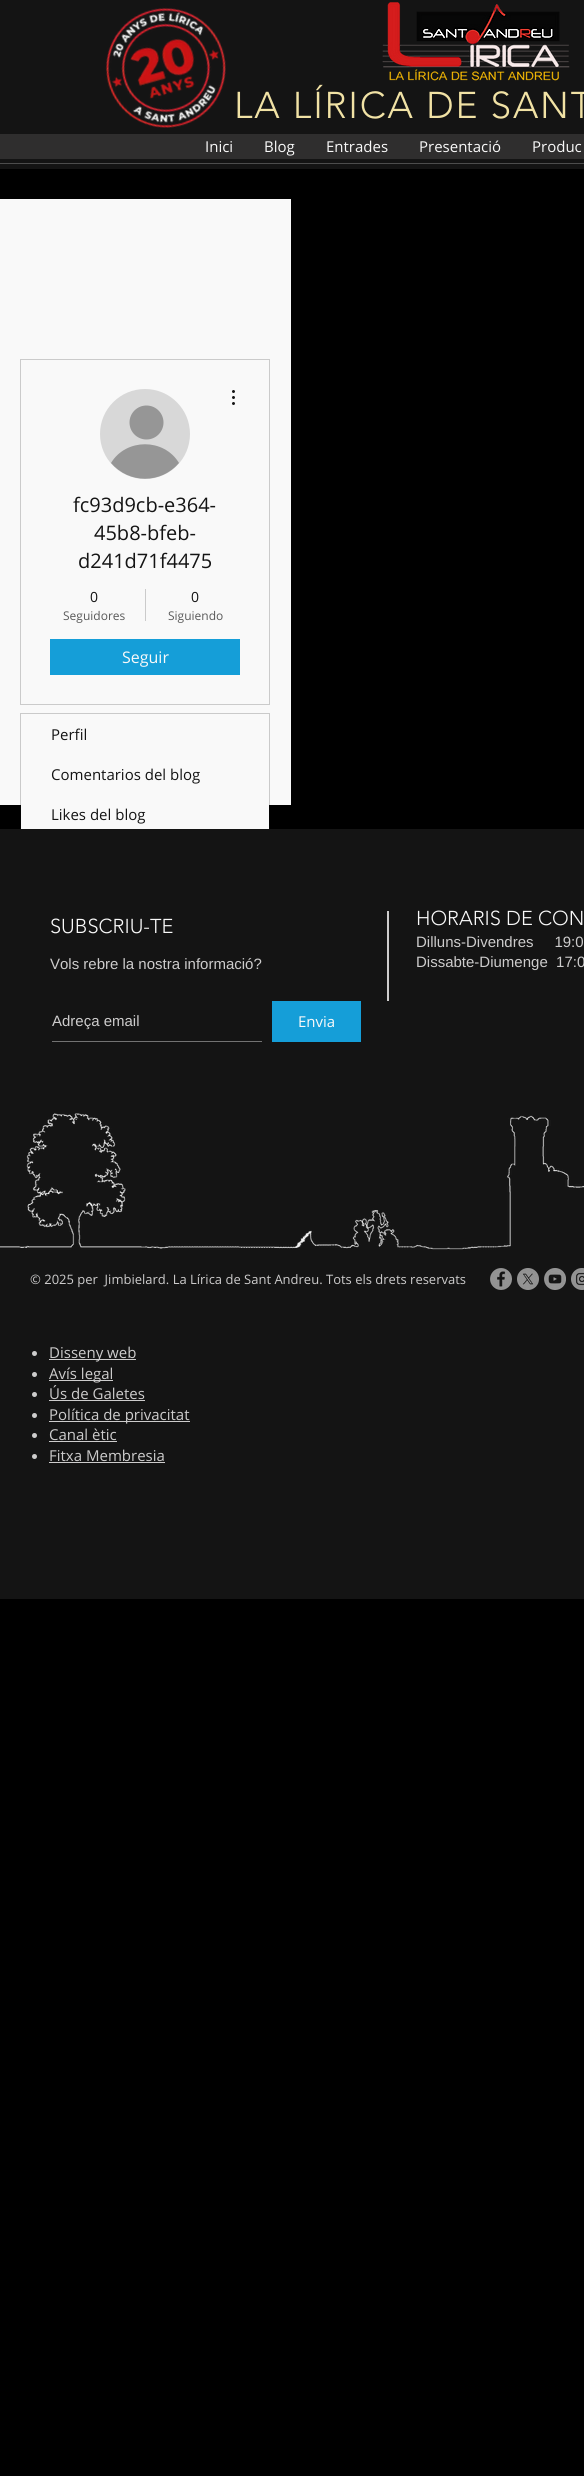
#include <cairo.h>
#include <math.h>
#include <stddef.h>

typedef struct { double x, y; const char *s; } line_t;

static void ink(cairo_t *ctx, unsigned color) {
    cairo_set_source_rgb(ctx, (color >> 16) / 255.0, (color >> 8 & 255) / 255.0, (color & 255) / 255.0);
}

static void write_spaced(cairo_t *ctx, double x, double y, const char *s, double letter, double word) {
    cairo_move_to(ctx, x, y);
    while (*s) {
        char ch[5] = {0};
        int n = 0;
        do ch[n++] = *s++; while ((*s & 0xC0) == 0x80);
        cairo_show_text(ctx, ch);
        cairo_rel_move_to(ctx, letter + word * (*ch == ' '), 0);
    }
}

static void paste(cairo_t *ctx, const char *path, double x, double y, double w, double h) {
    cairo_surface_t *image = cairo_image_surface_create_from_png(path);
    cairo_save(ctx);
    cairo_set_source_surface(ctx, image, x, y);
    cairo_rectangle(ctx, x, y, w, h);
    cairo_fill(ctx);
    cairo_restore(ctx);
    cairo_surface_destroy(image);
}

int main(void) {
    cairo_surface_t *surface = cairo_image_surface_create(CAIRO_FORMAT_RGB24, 584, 2476);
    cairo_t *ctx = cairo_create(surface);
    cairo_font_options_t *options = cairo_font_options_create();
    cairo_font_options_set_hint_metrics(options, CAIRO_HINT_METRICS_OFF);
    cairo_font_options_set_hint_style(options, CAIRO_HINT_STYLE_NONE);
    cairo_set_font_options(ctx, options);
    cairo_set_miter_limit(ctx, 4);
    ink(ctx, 0x000000);
    cairo_paint(ctx);
    ink(ctx, 0x141414);
    cairo_rectangle(ctx, 0, 0, 584, 169);
    cairo_fill(ctx);
    paste(ctx, "media/1.png", 105, 7, 121, 121);
    paste(ctx, "media/2.png", 382, 2, 188, 79);
    cairo_select_font_face(ctx, "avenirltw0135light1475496 Light", CAIRO_FONT_SLANT_NORMAL, CAIRO_FONT_WEIGHT_NORMAL);
    cairo_set_font_size(ctx, 37);
    ink(ctx, 0xF1E2A5);
    write_spaced(ctx, 234, 118, "LA LÍRICA DE SANT", 1.8, 0);
    ink(ctx, 0x2F2E2E);
    cairo_rectangle(ctx, 0, 134, 584, 25);
    cairo_fill(ctx);
    cairo_select_font_face(ctx, "Open Sans", CAIRO_FONT_SLANT_NORMAL, CAIRO_FONT_WEIGHT_NORMAL);
    cairo_set_font_size(ctx, 15);
    ink(ctx, 0xF9F9F9);
    {
        static const line_t items[] = {
            {205, 152, "Inici"},
            {264, 152, "Blog"},
            {326, 152, "Entrades"},
            {419, 152, "Presentació"},
            {532, 152, "Produc"},
        };
        for (size_t i = 0; i < sizeof items / sizeof *items; i++) {
            cairo_move_to(ctx, items[i].x, items[i].y);
            cairo_show_text(ctx, items[i].s);
        }
    }
    ink(ctx, 0x4D4D4D);
    cairo_rectangle(ctx, 0, 163, 584, 1);
    cairo_fill(ctx);
    ink(ctx, 0xF9F9F9);
    cairo_rectangle(ctx, 0, 199, 291, 606);
    cairo_fill(ctx);
    cairo_rectangle(ctx, 20.5, 359.5, 249, 345);
    ink(ctx, 0xCBCBCB);
    cairo_set_line_width(ctx, 1);
    cairo_stroke(ctx);
    ink(ctx, 0xD8D8D8);
    cairo_arc(ctx, 145, 434, 45, 0, 2 * M_PI);
    cairo_fill(ctx);
    ink(ctx, 0x969696);
    cairo_arc(ctx, 146.5, 422.5, 17, 0, 2 * M_PI);
    cairo_fill(ctx);
    cairo_new_path(ctx);
    cairo_move_to(ctx, 179, 463);
    cairo_curve_to(ctx, 161, 484, 129, 484, 111, 463);
    cairo_curve_to(ctx, 126, 438, 164, 438, 179, 463);
    cairo_close_path(ctx);
    cairo_fill(ctx);
    paste(ctx, "media/3.png", 232, 390, 3, 15);
    cairo_set_font_size(ctx, 20);
    ink(ctx, 0x141414);
    {
        static const line_t items[] = {
            {73, 512, "fc93d9cb-e364-"},
            {94, 540, "45b8-bfeb-"},
            {78, 568, "d241d71f4475"},
        };
        for (size_t i = 0; i < sizeof items / sizeof *items; i++) {
            cairo_move_to(ctx, items[i].x, items[i].y);
            cairo_show_text(ctx, items[i].s);
        }
    }
    cairo_set_font_size(ctx, 14);
    cairo_move_to(ctx, 90, 602);
    cairo_show_text(ctx, "0");
    cairo_set_font_size(ctx, 12);
    ink(ctx, 0x595959);
    cairo_move_to(ctx, 63, 620);
    cairo_show_text(ctx, "Seguidores");
    ink(ctx, 0xCBCBCB);
    cairo_rectangle(ctx, 145, 589, 1, 32);
    cairo_fill(ctx);
    cairo_set_font_size(ctx, 14);
    ink(ctx, 0x141414);
    cairo_move_to(ctx, 191, 602);
    cairo_show_text(ctx, "0");
    cairo_set_font_size(ctx, 12);
    ink(ctx, 0x595959);
    cairo_move_to(ctx, 168, 620);
    cairo_show_text(ctx, "Siguiendo");
    ink(ctx, 0x159ED8);
    cairo_rectangle(ctx, 50, 639, 190, 36);
    cairo_fill(ctx);
    cairo_set_font_size(ctx, 16);
    ink(ctx, 0xF9F9F9);
    cairo_move_to(ctx, 122, 663);
    cairo_show_text(ctx, "Seguir");
    cairo_rectangle(ctx, 20.5, 713.5, 249, 121);
    cairo_set_source_rgba(ctx, 0.078, 0.078, 0.078, 0.2);
    cairo_stroke(ctx);
    cairo_set_font_size(ctx, 15);
    ink(ctx, 0x141414);
    cairo_move_to(ctx, 51, 740);
    cairo_show_text(ctx, "Perfil");
    cairo_move_to(ctx, 51, 780);
    cairo_show_text(ctx, "Comentarios del blog");
    ink(ctx, 0xF9F9F9);
    cairo_rectangle(ctx, 21, 805, 248, 24);
    cairo_fill(ctx);
    ink(ctx, 0x141414);
    cairo_move_to(ctx, 51, 820);
    cairo_show_text(ctx, "Likes del blog");
    cairo_rectangle(ctx, 0, 829, 584, 770);
    cairo_fill(ctx);
    cairo_select_font_face(ctx, "avenirltw0135light1475496 Light", CAIRO_FONT_SLANT_NORMAL, CAIRO_FONT_WEIGHT_NORMAL);
    cairo_set_font_size(ctx, 20);
    ink(ctx, 0xF9F9F9);
    cairo_move_to(ctx, 50, 933);
    cairo_show_text(ctx, "SUBSCRIU-TE");
    cairo_select_font_face(ctx, "Liberation Sans", CAIRO_FONT_SLANT_NORMAL, CAIRO_FONT_WEIGHT_NORMAL);
    cairo_set_font_size(ctx, 15);
    ink(ctx, 0xCDCCCC);
    cairo_move_to(ctx, 50, 969);
    cairo_show_text(ctx, "Vols rebre la nostra informació?");
    ink(ctx, 0x727272);
    cairo_rectangle(ctx, 52, 1041, 210, 1);
    cairo_fill(ctx);
    ink(ctx, 0xCDCCCC);
    cairo_move_to(ctx, 52, 1026);
    cairo_show_text(ctx, "Adreça email");
    ink(ctx, 0x159ED8);
    cairo_rectangle(ctx, 272, 1001, 89, 41);
    cairo_fill(ctx);
    cairo_select_font_face(ctx, "Open Sans", CAIRO_FONT_SLANT_NORMAL, CAIRO_FONT_WEIGHT_NORMAL);
    ink(ctx, 0xF9F9F9);
    cairo_move_to(ctx, 298, 1027);
    cairo_show_text(ctx, "Envia");
    ink(ctx, 0xCDCCCC);
    cairo_rectangle(ctx, 387, 911, 2, 90);
    cairo_fill(ctx);
    cairo_select_font_face(ctx, "avenirltw0135light1475496 Light", CAIRO_FONT_SLANT_NORMAL, CAIRO_FONT_WEIGHT_NORMAL);
    cairo_set_font_size(ctx, 20);
    ink(ctx, 0xF9F9F9);
    cairo_move_to(ctx, 416, 925);
    cairo_show_text(ctx, "HORARIS DE CON");
    cairo_select_font_face(ctx, "Liberation Sans", CAIRO_FONT_SLANT_NORMAL, CAIRO_FONT_WEIGHT_NORMAL);
    cairo_set_font_size(ctx, 15);
    ink(ctx, 0xCDCCCC);
    cairo_move_to(ctx, 416, 947);
    cairo_show_text(ctx, "Dilluns-Divendres     19:0");
    cairo_move_to(ctx, 416, 967);
    cairo_show_text(ctx, "Dissabte-Diumenge  17:0");
    paste(ctx, "media/4.png", 0, 1113, 584, 137);
    cairo_select_font_face(ctx, "Open Sans", CAIRO_FONT_SLANT_NORMAL, CAIRO_FONT_WEIGHT_NORMAL);
    cairo_set_font_size(ctx, 13);
    cairo_move_to(ctx, 30, 1284);
    cairo_show_text(ctx, "© 2025 per  Jimbielard. La Lírica de Sant Andreu. Tots els drets reservats");
    paste(ctx, "media/5.png", 490, 1268, 22, 22);
    paste(ctx, "media/6.png", 517, 1268, 22, 22);
    paste(ctx, "media/7.png", 544, 1268, 22, 22);
    paste(ctx, "media/8.png", 571, 1268, 13, 22);
    cairo_arc(ctx, 34.5, 1353.5, 2.5, 0, 2 * M_PI);
    cairo_fill(ctx);
    cairo_rectangle(ctx, 49, 1359, 87, 1);
    cairo_fill(ctx);
    cairo_set_font_size(ctx, 15);
    cairo_move_to(ctx, 49, 1358);
    cairo_show_text(ctx, "Disseny web");
    cairo_new_path(ctx);
    cairo_arc(ctx, 34.5, 1374.5, 2.5, 0, 2 * M_PI);
    cairo_fill(ctx);
    cairo_rectangle(ctx, 49, 1380, 64, 1);
    cairo_fill(ctx);
    cairo_move_to(ctx, 49, 1379);
    cairo_show_text(ctx, "Avís legal");
    cairo_new_path(ctx);
    cairo_arc(ctx, 34.5, 1394.5, 2.5, 0, 2 * M_PI);
    cairo_fill(ctx);
    cairo_move_to(ctx, 49, 1399);
    cairo_show_text(ctx, "Ús de Galetes");
    cairo_rectangle(ctx, 49, 1400, 96, 1);
    cairo_fill(ctx);
    cairo_arc(ctx, 34.5, 1415.5, 2.5, 0, 2 * M_PI);
    cairo_fill(ctx);
    cairo_rectangle(ctx, 49, 1421, 141, 1);
    cairo_fill(ctx);
    cairo_move_to(ctx, 49, 1420);
    cairo_show_text(ctx, "Política de privacitat");
    cairo_new_path(ctx);
    cairo_arc(ctx, 34.5, 1435.5, 2.5, 0, 2 * M_PI);
    cairo_fill(ctx);
    cairo_move_to(ctx, 49, 1440);
    cairo_show_text(ctx, "Canal ètic");
    cairo_rectangle(ctx, 49, 1441, 68, 1);
    cairo_fill(ctx);
    cairo_arc(ctx, 34.5, 1456.5, 2.5, 0, 2 * M_PI);
    cairo_fill(ctx);
    cairo_move_to(ctx, 49, 1461);
    cairo_show_text(ctx, "Fitxa Membresia");
    cairo_rectangle(ctx, 49, 1462, 116, 1);
    cairo_fill(ctx);
    cairo_surface_write_to_png(surface, "image.png");
    cairo_font_options_destroy(options);
    cairo_destroy(ctx);
    cairo_surface_destroy(surface);
    return 0;
}
